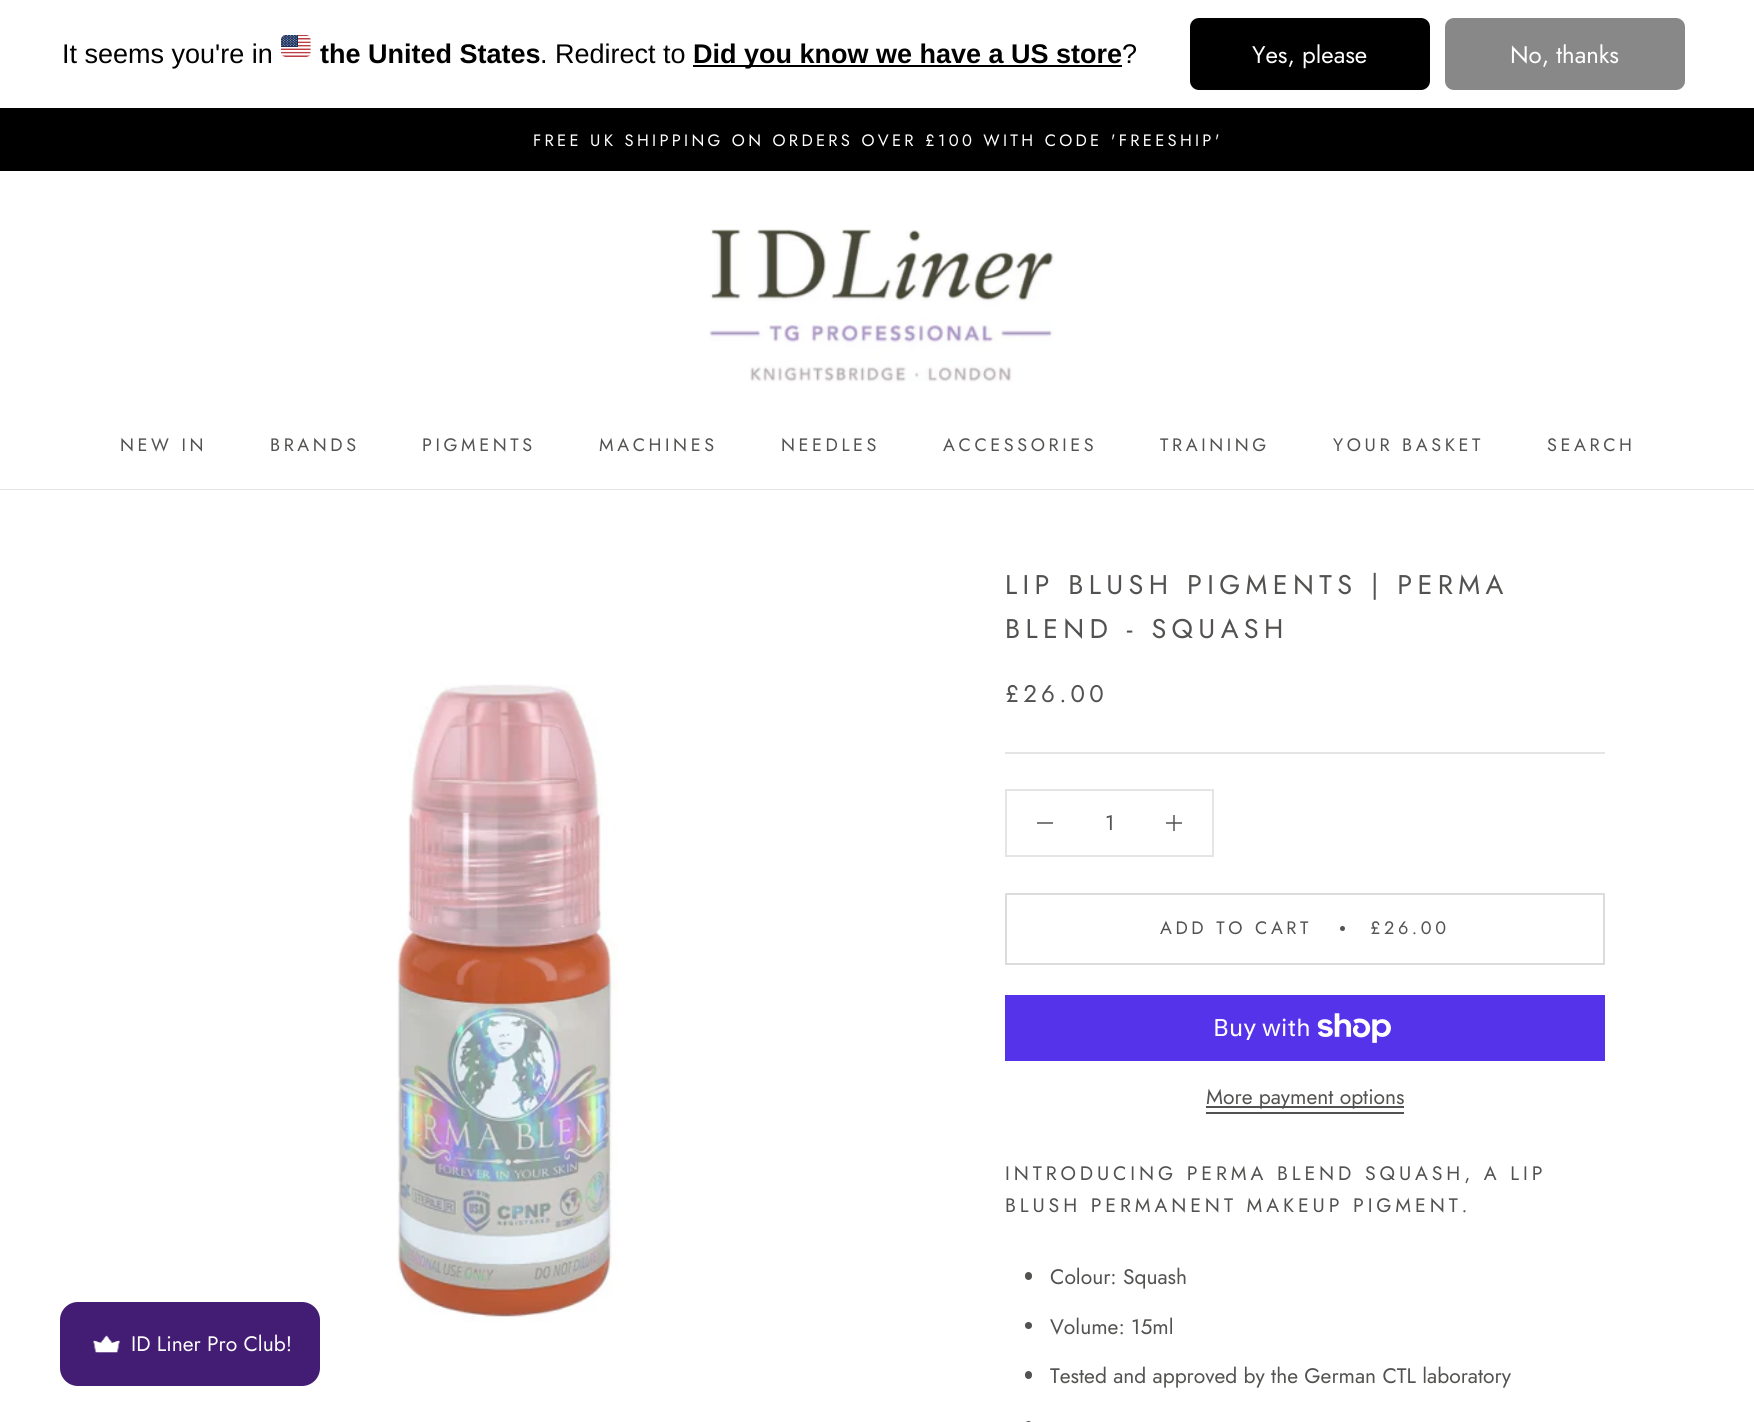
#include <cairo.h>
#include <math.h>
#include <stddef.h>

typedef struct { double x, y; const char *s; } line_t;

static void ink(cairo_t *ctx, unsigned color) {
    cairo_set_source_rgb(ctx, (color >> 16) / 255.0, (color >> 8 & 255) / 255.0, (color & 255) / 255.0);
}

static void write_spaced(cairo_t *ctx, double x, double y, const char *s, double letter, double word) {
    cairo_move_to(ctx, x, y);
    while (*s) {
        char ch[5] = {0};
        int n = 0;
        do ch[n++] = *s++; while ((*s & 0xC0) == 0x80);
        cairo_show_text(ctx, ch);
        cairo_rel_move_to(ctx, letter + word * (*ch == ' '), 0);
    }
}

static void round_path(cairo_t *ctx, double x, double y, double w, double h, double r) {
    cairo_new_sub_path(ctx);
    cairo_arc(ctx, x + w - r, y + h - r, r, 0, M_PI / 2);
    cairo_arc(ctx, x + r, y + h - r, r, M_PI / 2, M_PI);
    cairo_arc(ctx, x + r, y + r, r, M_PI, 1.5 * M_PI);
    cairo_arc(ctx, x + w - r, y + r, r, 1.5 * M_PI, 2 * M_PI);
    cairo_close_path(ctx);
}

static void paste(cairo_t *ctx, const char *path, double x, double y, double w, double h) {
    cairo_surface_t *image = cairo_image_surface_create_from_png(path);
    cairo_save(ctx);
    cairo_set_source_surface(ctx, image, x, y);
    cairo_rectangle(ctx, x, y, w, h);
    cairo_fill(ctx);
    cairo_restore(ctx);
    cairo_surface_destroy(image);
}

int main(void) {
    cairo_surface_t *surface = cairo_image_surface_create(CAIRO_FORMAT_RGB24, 1754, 1422);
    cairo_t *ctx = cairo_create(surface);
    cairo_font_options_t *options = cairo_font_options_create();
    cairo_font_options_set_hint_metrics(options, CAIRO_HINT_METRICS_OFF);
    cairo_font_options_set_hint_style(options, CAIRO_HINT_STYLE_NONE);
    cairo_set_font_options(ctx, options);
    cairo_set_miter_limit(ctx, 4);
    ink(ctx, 0xFFFFFF);
    cairo_paint(ctx);
    ink(ctx, 0x7E7D7C);
    cairo_rectangle(ctx, 1166, 822, 16, 2);
    cairo_fill(ctx);
    cairo_select_font_face(ctx, "Liberation Sans", CAIRO_FONT_SLANT_NORMAL, CAIRO_FONT_WEIGHT_NORMAL);
    cairo_set_font_size(ctx, 27);
    ink(ctx, 0x000000);
    cairo_move_to(ctx, 62, 63);
    cairo_show_text(ctx, "It seems you're in");
    paste(ctx, "media/1.png", 281, 35, 30, 22);
    cairo_select_font_face(ctx, "Liberation Sans", CAIRO_FONT_SLANT_NORMAL, CAIRO_FONT_WEIGHT_BOLD);
    cairo_move_to(ctx, 320, 63);
    cairo_show_text(ctx, "the United States");
    cairo_select_font_face(ctx, "Liberation Sans", CAIRO_FONT_SLANT_NORMAL, CAIRO_FONT_WEIGHT_NORMAL);
    cairo_move_to(ctx, 540, 63);
    cairo_show_text(ctx, ". Redirect to");
    cairo_rectangle(ctx, 693, 65, 429, 2);
    cairo_fill(ctx);
    cairo_select_font_face(ctx, "Liberation Sans", CAIRO_FONT_SLANT_NORMAL, CAIRO_FONT_WEIGHT_BOLD);
    cairo_move_to(ctx, 693, 63);
    cairo_show_text(ctx, "Did you know we have a US store");
    cairo_select_font_face(ctx, "Liberation Sans", CAIRO_FONT_SLANT_NORMAL, CAIRO_FONT_WEIGHT_NORMAL);
    cairo_move_to(ctx, 1122, 63);
    cairo_show_text(ctx, "?");
    round_path(ctx, 1190, 18, 240, 72, 9);
    cairo_fill(ctx);
    cairo_select_font_face(ctx, "Jost", CAIRO_FONT_SLANT_NORMAL, CAIRO_FONT_WEIGHT_NORMAL);
    cairo_set_font_size(ctx, 24);
    ink(ctx, 0xFFFFFF);
    cairo_move_to(ctx, 1252, 63);
    cairo_show_text(ctx, "Yes, please");
    ink(ctx, 0x888888);
    round_path(ctx, 1445, 18, 240, 72, 9);
    cairo_fill(ctx);
    ink(ctx, 0xFFFFFF);
    cairo_move_to(ctx, 1510, 63);
    cairo_show_text(ctx, "No, thanks");
    ink(ctx, 0x000000);
    cairo_rectangle(ctx, 0, 108, 1754, 63);
    cairo_fill(ctx);
    cairo_set_font_size(ctx, 16.5);
    ink(ctx, 0xFFFFFF);
    write_spaced(ctx, 533, 146, "FREE UK SHIPPING ON ORDERS OVER £100 WITH CODE 'FREESHIP'", 3.3, 0);
    ink(ctx, 0xE5E5E5);
    cairo_rectangle(ctx, 0, 489, 1754, 1);
    cairo_fill(ctx);
    paste(ctx, "media/2.png", 709, 229, 346, 153);
    cairo_set_font_size(ctx, 18);
    ink(ctx, 0x535250);
    {
        static const line_t items[] = {
            {120, 451, "NEW IN"},
            {270, 451, "BRANDS"},
            {422, 451, "PIGMENTS"},
            {599, 451, "MACHINES"},
            {781, 451, "NEEDLES"},
            {943, 451, "ACCESSORIES"},
            {1160, 451, "TRAINING"},
            {1333, 451, "YOUR BASKET"},
            {1547, 451, "SEARCH"},
        };
        for (size_t i = 0; i < sizeof items / sizeof *items; i++) {
            write_spaced(ctx, items[i].x, items[i].y, items[i].s, 3.6, 0);
        }
    }
    paste(ctx, "media/3.png", 397, 684, 221, 638);
    ink(ctx, 0xE5E5E5);
    cairo_rectangle(ctx, 1005, 752, 600, 2);
    cairo_fill(ctx);
    cairo_set_font_size(ctx, 27);
    ink(ctx, 0x535250);
    write_spaced(ctx, 1005, 594, "LIP BLUSH PIGMENTS | PERMA", 5.4, 0);
    write_spaced(ctx, 1005, 638, "BLEND - SQUASH", 5.4, 0);
    cairo_set_font_size(ctx, 24);
    write_spaced(ctx, 1005, 702, "£26.00", 4.25, 0);
    cairo_rectangle(ctx, 1006, 790, 207, 66);
    ink(ctx, 0xE5E5E5);
    cairo_stroke(ctx);
    ink(ctx, 0x7E7D7C);
    cairo_rectangle(ctx, 1037, 822, 16, 2);
    cairo_fill(ctx);
    cairo_set_font_size(ctx, 21);
    ink(ctx, 0x535250);
    cairo_move_to(ctx, 1105, 830);
    cairo_show_text(ctx, "1");
    ink(ctx, 0x7E7D7C);
    cairo_rectangle(ctx, 1173, 815, 2, 16);
    cairo_fill(ctx);
    ink(ctx, 0x5E5D5B);
    cairo_rectangle(ctx, 1173, 822, 2, 2);
    cairo_fill(ctx);
    cairo_rectangle(ctx, 1006, 894, 598, 70);
    ink(ctx, 0xDDDCDC);
    cairo_stroke(ctx);
    cairo_set_font_size(ctx, 18);
    ink(ctx, 0x535250);
    write_spaced(ctx, 1160, 934, "ADD TO CART", 3.6, 0);
    cairo_new_path(ctx);
    cairo_arc(ctx, 1342.5, 928.5, 2.5, 0, 2 * M_PI);
    cairo_fill(ctx);
    write_spaced(ctx, 1370, 934, "£26.00", 3.6, 0);
    ink(ctx, 0x5433EB);
    cairo_rectangle(ctx, 1005, 995, 600, 66);
    cairo_fill(ctx);
    cairo_select_font_face(ctx, "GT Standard", CAIRO_FONT_SLANT_NORMAL, CAIRO_FONT_WEIGHT_NORMAL);
    cairo_set_font_size(ctx, 24);
    ink(ctx, 0xFFFFFF);
    cairo_move_to(ctx, 1213, 1036);
    cairo_show_text(ctx, "Buy with");
    paste(ctx, "media/4.png", 1317, 1013, 74, 30);
    ink(ctx, 0x535250);
    cairo_rectangle(ctx, 1206, 1106, 198, 2);
    cairo_fill(ctx);
    cairo_select_font_face(ctx, "Jost", CAIRO_FONT_SLANT_NORMAL, CAIRO_FONT_WEIGHT_NORMAL);
    cairo_set_font_size(ctx, 21);
    cairo_move_to(ctx, 1206, 1104);
    cairo_show_text(ctx, "More payment options");
    cairo_rectangle(ctx, 1206, 1112, 198, 2);
    cairo_fill(ctx);
    cairo_set_font_size(ctx, 19.5);
    write_spaced(ctx, 1005, 1180, "INTRODUCING PERMA BLEND SQUASH, A LIP", 3.9, 0);
    write_spaced(ctx, 1005, 1212, "BLUSH PERMANENT MAKEUP PIGMENT.", 3.9, 0);
    round_path(ctx, 1025, 1272, 7, 8, 3.5);
    cairo_fill(ctx);
    cairo_set_font_size(ctx, 21);
    cairo_move_to(ctx, 1050, 1284);
    cairo_show_text(ctx, "Colour: Squash");
    cairo_new_path(ctx);
    cairo_arc(ctx, 1028.5, 1325.5, 3.5, 0, 2 * M_PI);
    cairo_fill(ctx);
    cairo_move_to(ctx, 1050, 1334);
    cairo_show_text(ctx, "Volume: 15ml");
    round_path(ctx, 1025, 1371, 7, 8, 3.5);
    cairo_fill(ctx);
    cairo_move_to(ctx, 1050, 1383);
    cairo_show_text(ctx, "Tested and approved by the German CTL laboratory");
    round_path(ctx, 1025, 1421, 7, 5, 3.5);
    cairo_fill(ctx);
    ink(ctx, 0x431C74);
    round_path(ctx, 60, 1302, 260, 84, 18);
    cairo_fill(ctx);
    paste(ctx, "media/5.png", 93, 1335, 27, 18);
    ink(ctx, 0xFFFFFF);
    cairo_move_to(ctx, 131, 1351);
    cairo_show_text(ctx, "ID Liner Pro Club!");
    cairo_surface_write_to_png(surface, "image.png");
    cairo_font_options_destroy(options);
    cairo_destroy(ctx);
    cairo_surface_destroy(surface);
    return 0;
}
